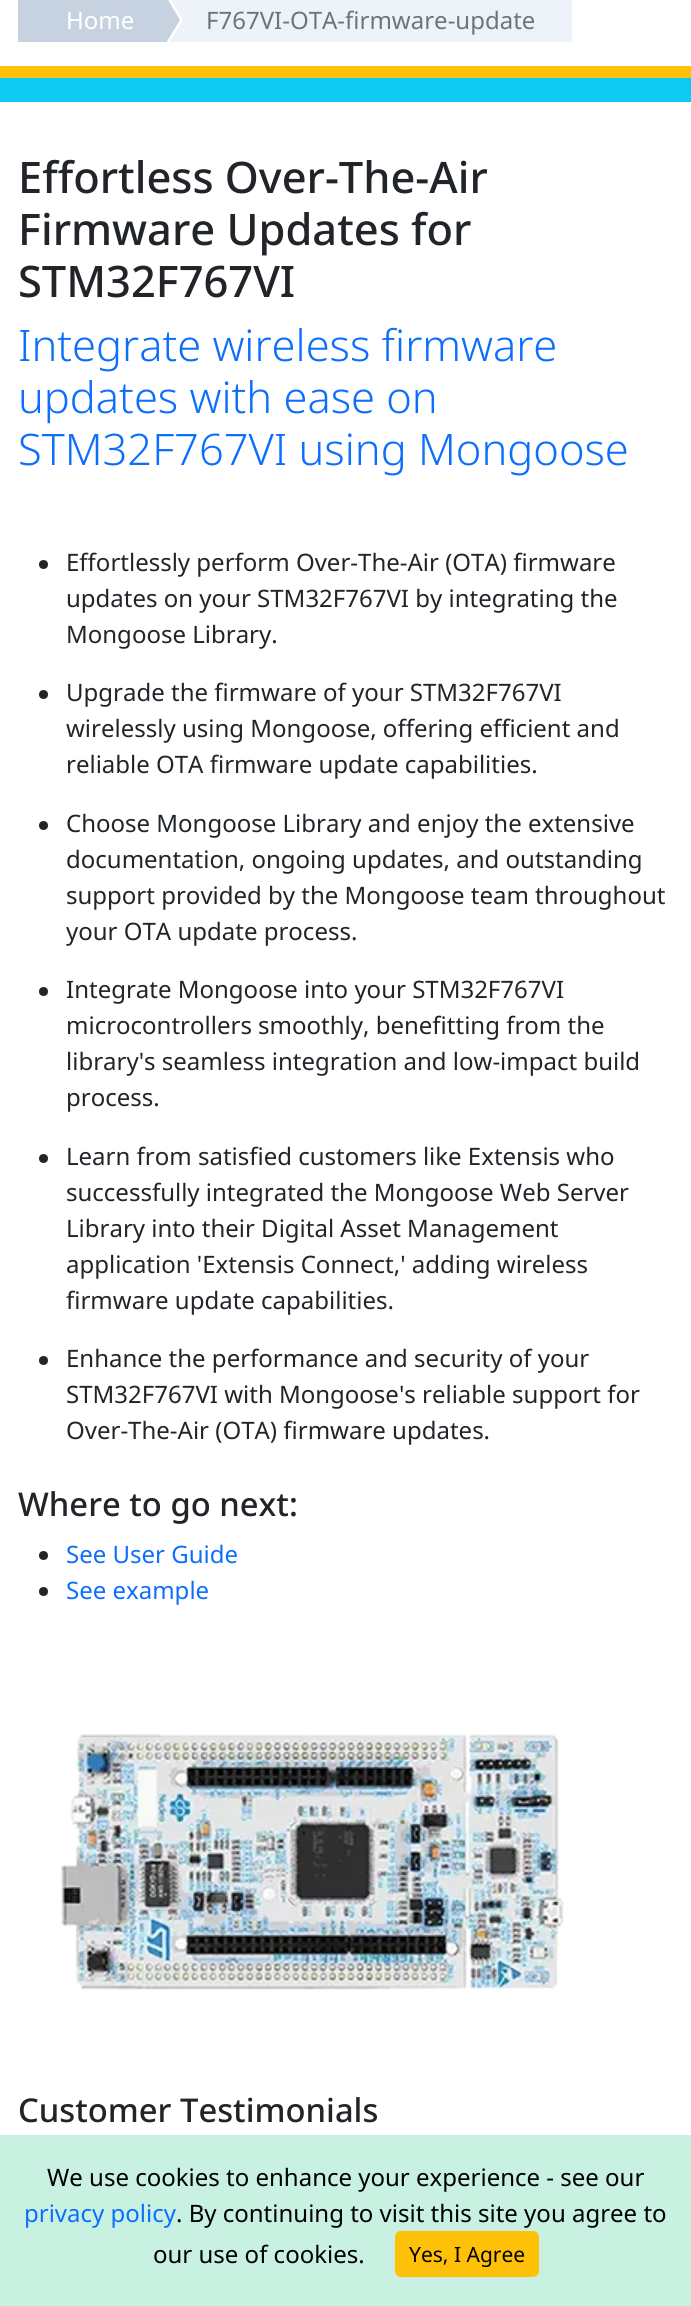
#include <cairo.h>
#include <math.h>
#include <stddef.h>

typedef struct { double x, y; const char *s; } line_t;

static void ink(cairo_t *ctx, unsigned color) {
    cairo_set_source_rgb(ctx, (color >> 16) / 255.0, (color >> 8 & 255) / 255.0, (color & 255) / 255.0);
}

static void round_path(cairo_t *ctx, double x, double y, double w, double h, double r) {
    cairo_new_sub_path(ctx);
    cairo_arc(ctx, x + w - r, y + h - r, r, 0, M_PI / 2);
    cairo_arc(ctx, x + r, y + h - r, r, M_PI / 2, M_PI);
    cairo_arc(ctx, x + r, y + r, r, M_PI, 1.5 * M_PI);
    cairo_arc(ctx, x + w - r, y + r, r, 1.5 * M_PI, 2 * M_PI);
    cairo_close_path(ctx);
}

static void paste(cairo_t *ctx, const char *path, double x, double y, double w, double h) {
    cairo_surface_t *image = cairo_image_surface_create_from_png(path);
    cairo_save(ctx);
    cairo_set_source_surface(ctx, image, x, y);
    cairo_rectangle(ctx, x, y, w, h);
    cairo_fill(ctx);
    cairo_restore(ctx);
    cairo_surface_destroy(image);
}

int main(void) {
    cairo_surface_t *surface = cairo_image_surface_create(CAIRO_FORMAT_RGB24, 691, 2306);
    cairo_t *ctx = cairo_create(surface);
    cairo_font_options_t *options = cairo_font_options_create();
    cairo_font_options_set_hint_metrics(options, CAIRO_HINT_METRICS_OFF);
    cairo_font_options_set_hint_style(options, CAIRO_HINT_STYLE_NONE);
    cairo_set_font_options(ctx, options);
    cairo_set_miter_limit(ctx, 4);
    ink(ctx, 0xFFFFFF);
    cairo_paint(ctx);
    ink(ctx, 0xC7D2E1);
    cairo_rectangle(ctx, 18, 0, 117, 42);
    cairo_fill(ctx);
    ink(ctx, 0xEEF3F9);
    cairo_rectangle(ctx, 169, 0, 403, 42);
    cairo_fill(ctx);
    cairo_save(ctx);
    cairo_rectangle(ctx, 18, 0, 656, 42);
    cairo_clip(ctx);
    ink(ctx, 0xFFFFFF);
    cairo_new_path(ctx);
    cairo_move_to(ctx, 138, 94);
    cairo_line_to(ctx, 138, -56);
    cairo_line_to(ctx, 183, 20);
    cairo_close_path(ctx);
    cairo_fill(ctx);
    ink(ctx, 0xC7D2E1);
    cairo_new_path(ctx);
    cairo_move_to(ctx, 135, 94);
    cairo_line_to(ctx, 135, -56);
    cairo_line_to(ctx, 180, 20);
    cairo_close_path(ctx);
    cairo_fill(ctx);
    cairo_restore(ctx);
    cairo_select_font_face(ctx, "Noto Sans", CAIRO_FONT_SLANT_NORMAL, CAIRO_FONT_WEIGHT_NORMAL);
    cairo_set_font_size(ctx, 24);
    ink(ctx, 0xFFFFFF);
    cairo_move_to(ctx, 66, 29);
    cairo_show_text(ctx, "Home");
    ink(ctx, 0x6C757D);
    cairo_move_to(ctx, 206, 29);
    cairo_show_text(ctx, "F767VI-OTA-firmware-update");
    ink(ctx, 0xFFC107);
    cairo_rectangle(ctx, 0, 66, 691, 12);
    cairo_fill(ctx);
    ink(ctx, 0x0DCAF0);
    cairo_rectangle(ctx, 0, 78, 691, 24);
    cairo_fill(ctx);
    cairo_select_font_face(ctx, "Noto Sans Medium", CAIRO_FONT_SLANT_NORMAL, CAIRO_FONT_WEIGHT_NORMAL);
    cairo_set_font_size(ctx, 43.4);
    ink(ctx, 0x212529);
    {
        static const line_t items[] = {
            {18, 193, "Effortless Over-The-Air"},
            {18, 245, "Firmware Updates for"},
            {18, 297, "STM32F767VI"},
        };
        for (size_t i = 0; i < sizeof items / sizeof *items; i++) {
            cairo_move_to(ctx, items[i].x, items[i].y);
            cairo_show_text(ctx, items[i].s);
        }
    }
    cairo_select_font_face(ctx, "Noto Sans Light", CAIRO_FONT_SLANT_NORMAL, CAIRO_FONT_WEIGHT_NORMAL);
    ink(ctx, 0x0D6EFD);
    {
        static const line_t items[] = {
            {18, 361, "Integrate wireless firmware"},
            {18, 413, "updates with ease on"},
            {18, 465, "STM32F767VI using Mongoose"},
        };
        for (size_t i = 0; i < sizeof items / sizeof *items; i++) {
            cairo_move_to(ctx, items[i].x, items[i].y);
            cairo_show_text(ctx, items[i].s);
        }
    }
    ink(ctx, 0x212529);
    cairo_new_path(ctx);
    cairo_arc(ctx, 43.5, 564.5, 4.5, 0, 2 * M_PI);
    cairo_fill(ctx);
    cairo_select_font_face(ctx, "Noto Sans", CAIRO_FONT_SLANT_NORMAL, CAIRO_FONT_WEIGHT_NORMAL);
    cairo_set_font_size(ctx, 24);
    {
        static const line_t items[] = {
            {66, 571, "Effortlessly perform Over-The-Air (OTA) firmware"},
            {66, 607, "updates on your STM32F767VI by integrating the"},
            {66, 643, "Mongoose Library."},
        };
        for (size_t i = 0; i < sizeof items / sizeof *items; i++) {
            cairo_move_to(ctx, items[i].x, items[i].y);
            cairo_show_text(ctx, items[i].s);
        }
    }
    cairo_new_path(ctx);
    cairo_arc(ctx, 43.5, 694.5, 4.5, 0, 2 * M_PI);
    cairo_fill(ctx);
    {
        static const line_t items[] = {
            {66, 701, "Upgrade the firmware of your STM32F767VI"},
            {66, 737, "wirelessly using Mongoose, offering efficient and"},
            {66, 773, "reliable OTA firmware update capabilities."},
        };
        for (size_t i = 0; i < sizeof items / sizeof *items; i++) {
            cairo_move_to(ctx, items[i].x, items[i].y);
            cairo_show_text(ctx, items[i].s);
        }
    }
    cairo_new_path(ctx);
    cairo_arc(ctx, 43.5, 825.5, 4.5, 0, 2 * M_PI);
    cairo_fill(ctx);
    {
        static const line_t items[] = {
            {66, 832, "Choose Mongoose Library and enjoy the extensive"},
            {66, 868, "documentation, ongoing updates, and outstanding"},
            {66, 904, "support provided by the Mongoose team throughout"},
            {66, 940, "your OTA update process."},
        };
        for (size_t i = 0; i < sizeof items / sizeof *items; i++) {
            cairo_move_to(ctx, items[i].x, items[i].y);
            cairo_show_text(ctx, items[i].s);
        }
    }
    cairo_new_path(ctx);
    cairo_arc(ctx, 43.5, 991.5, 4.5, 0, 2 * M_PI);
    cairo_fill(ctx);
    {
        static const line_t items[] = {
            {66, 998, "Integrate Mongoose into your STM32F767VI"},
            {66, 1034, "microcontrollers smoothly, benefitting from the"},
            {66, 1070, "library's seamless integration and low-impact build"},
            {66, 1106, "process."},
        };
        for (size_t i = 0; i < sizeof items / sizeof *items; i++) {
            cairo_move_to(ctx, items[i].x, items[i].y);
            cairo_show_text(ctx, items[i].s);
        }
    }
    cairo_new_path(ctx);
    cairo_arc(ctx, 43.5, 1158.5, 4.5, 0, 2 * M_PI);
    cairo_fill(ctx);
    {
        static const line_t items[] = {
            {66, 1165, "Learn from satisfied customers like Extensis who"},
            {66, 1201, "successfully integrated the Mongoose Web Server"},
            {66, 1237, "Library into their Digital Asset Management"},
            {66, 1273, "application 'Extensis Connect,' adding wireless"},
            {66, 1309, "firmware update capabilities."},
        };
        for (size_t i = 0; i < sizeof items / sizeof *items; i++) {
            cairo_move_to(ctx, items[i].x, items[i].y);
            cairo_show_text(ctx, items[i].s);
        }
    }
    cairo_new_path(ctx);
    cairo_arc(ctx, 43.5, 1360.5, 4.5, 0, 2 * M_PI);
    cairo_fill(ctx);
    {
        static const line_t items[] = {
            {66, 1367, "Enhance the performance and security of your"},
            {66, 1403, "STM32F767VI with Mongoose's reliable support for"},
            {66, 1439, "Over-The-Air (OTA) firmware updates."},
        };
        for (size_t i = 0; i < sizeof items / sizeof *items; i++) {
            cairo_move_to(ctx, items[i].x, items[i].y);
            cairo_show_text(ctx, items[i].s);
        }
    }
    cairo_select_font_face(ctx, "Noto Sans Medium", CAIRO_FONT_SLANT_NORMAL, CAIRO_FONT_WEIGHT_NORMAL);
    cairo_set_font_size(ctx, 32.75);
    cairo_move_to(ctx, 18, 1516);
    cairo_show_text(ctx, "Where to go next:");
    cairo_new_path(ctx);
    cairo_arc(ctx, 43.5, 1555.5, 4.5, 0, 2 * M_PI);
    cairo_fill(ctx);
    cairo_select_font_face(ctx, "Noto Sans", CAIRO_FONT_SLANT_NORMAL, CAIRO_FONT_WEIGHT_NORMAL);
    cairo_set_font_size(ctx, 24);
    ink(ctx, 0x0D6EFD);
    cairo_move_to(ctx, 66, 1563);
    cairo_show_text(ctx, "See User Guide");
    ink(ctx, 0x212529);
    cairo_new_path(ctx);
    cairo_arc(ctx, 43.5, 1591.5, 4.5, 0, 2 * M_PI);
    cairo_fill(ctx);
    ink(ctx, 0x0D6EFD);
    cairo_move_to(ctx, 66, 1599);
    cairo_show_text(ctx, "See example");
    paste(ctx, "media/1.png", 61, 1733, 503, 257);
    cairo_select_font_face(ctx, "Noto Sans Medium", CAIRO_FONT_SLANT_NORMAL, CAIRO_FONT_WEIGHT_NORMAL);
    cairo_set_font_size(ctx, 32.75);
    ink(ctx, 0x212529);
    cairo_move_to(ctx, 18, 2122);
    cairo_show_text(ctx, "Customer Testimonials");
    ink(ctx, 0xC8F1E2);
    cairo_rectangle(ctx, 0, 2135, 691, 171);
    cairo_fill(ctx);
    cairo_select_font_face(ctx, "Noto Sans", CAIRO_FONT_SLANT_NORMAL, CAIRO_FONT_WEIGHT_NORMAL);
    cairo_set_font_size(ctx, 24);
    ink(ctx, 0x000000);
    cairo_move_to(ctx, 47, 2186);
    cairo_show_text(ctx, "We use cookies to enhance your experience - see our");
    ink(ctx, 0x0D6EFD);
    cairo_move_to(ctx, 24, 2222);
    cairo_show_text(ctx, "privacy policy");
    ink(ctx, 0x000000);
    cairo_move_to(ctx, 176, 2222);
    cairo_show_text(ctx, ". By continuing to visit this site you agree to");
    cairo_move_to(ctx, 153, 2263);
    cairo_show_text(ctx, "our use of cookies.");
    ink(ctx, 0xFFC107);
    round_path(ctx, 396, 2232, 142, 44, 5);
    cairo_fill_preserve(ctx);
    cairo_stroke(ctx);
    cairo_set_font_size(ctx, 21);
    ink(ctx, 0x000000);
    cairo_move_to(ctx, 409, 2262);
    cairo_show_text(ctx, "Yes, I Agree");
    cairo_surface_write_to_png(surface, "image.png");
    cairo_font_options_destroy(options);
    cairo_destroy(ctx);
    cairo_surface_destroy(surface);
    return 0;
}
